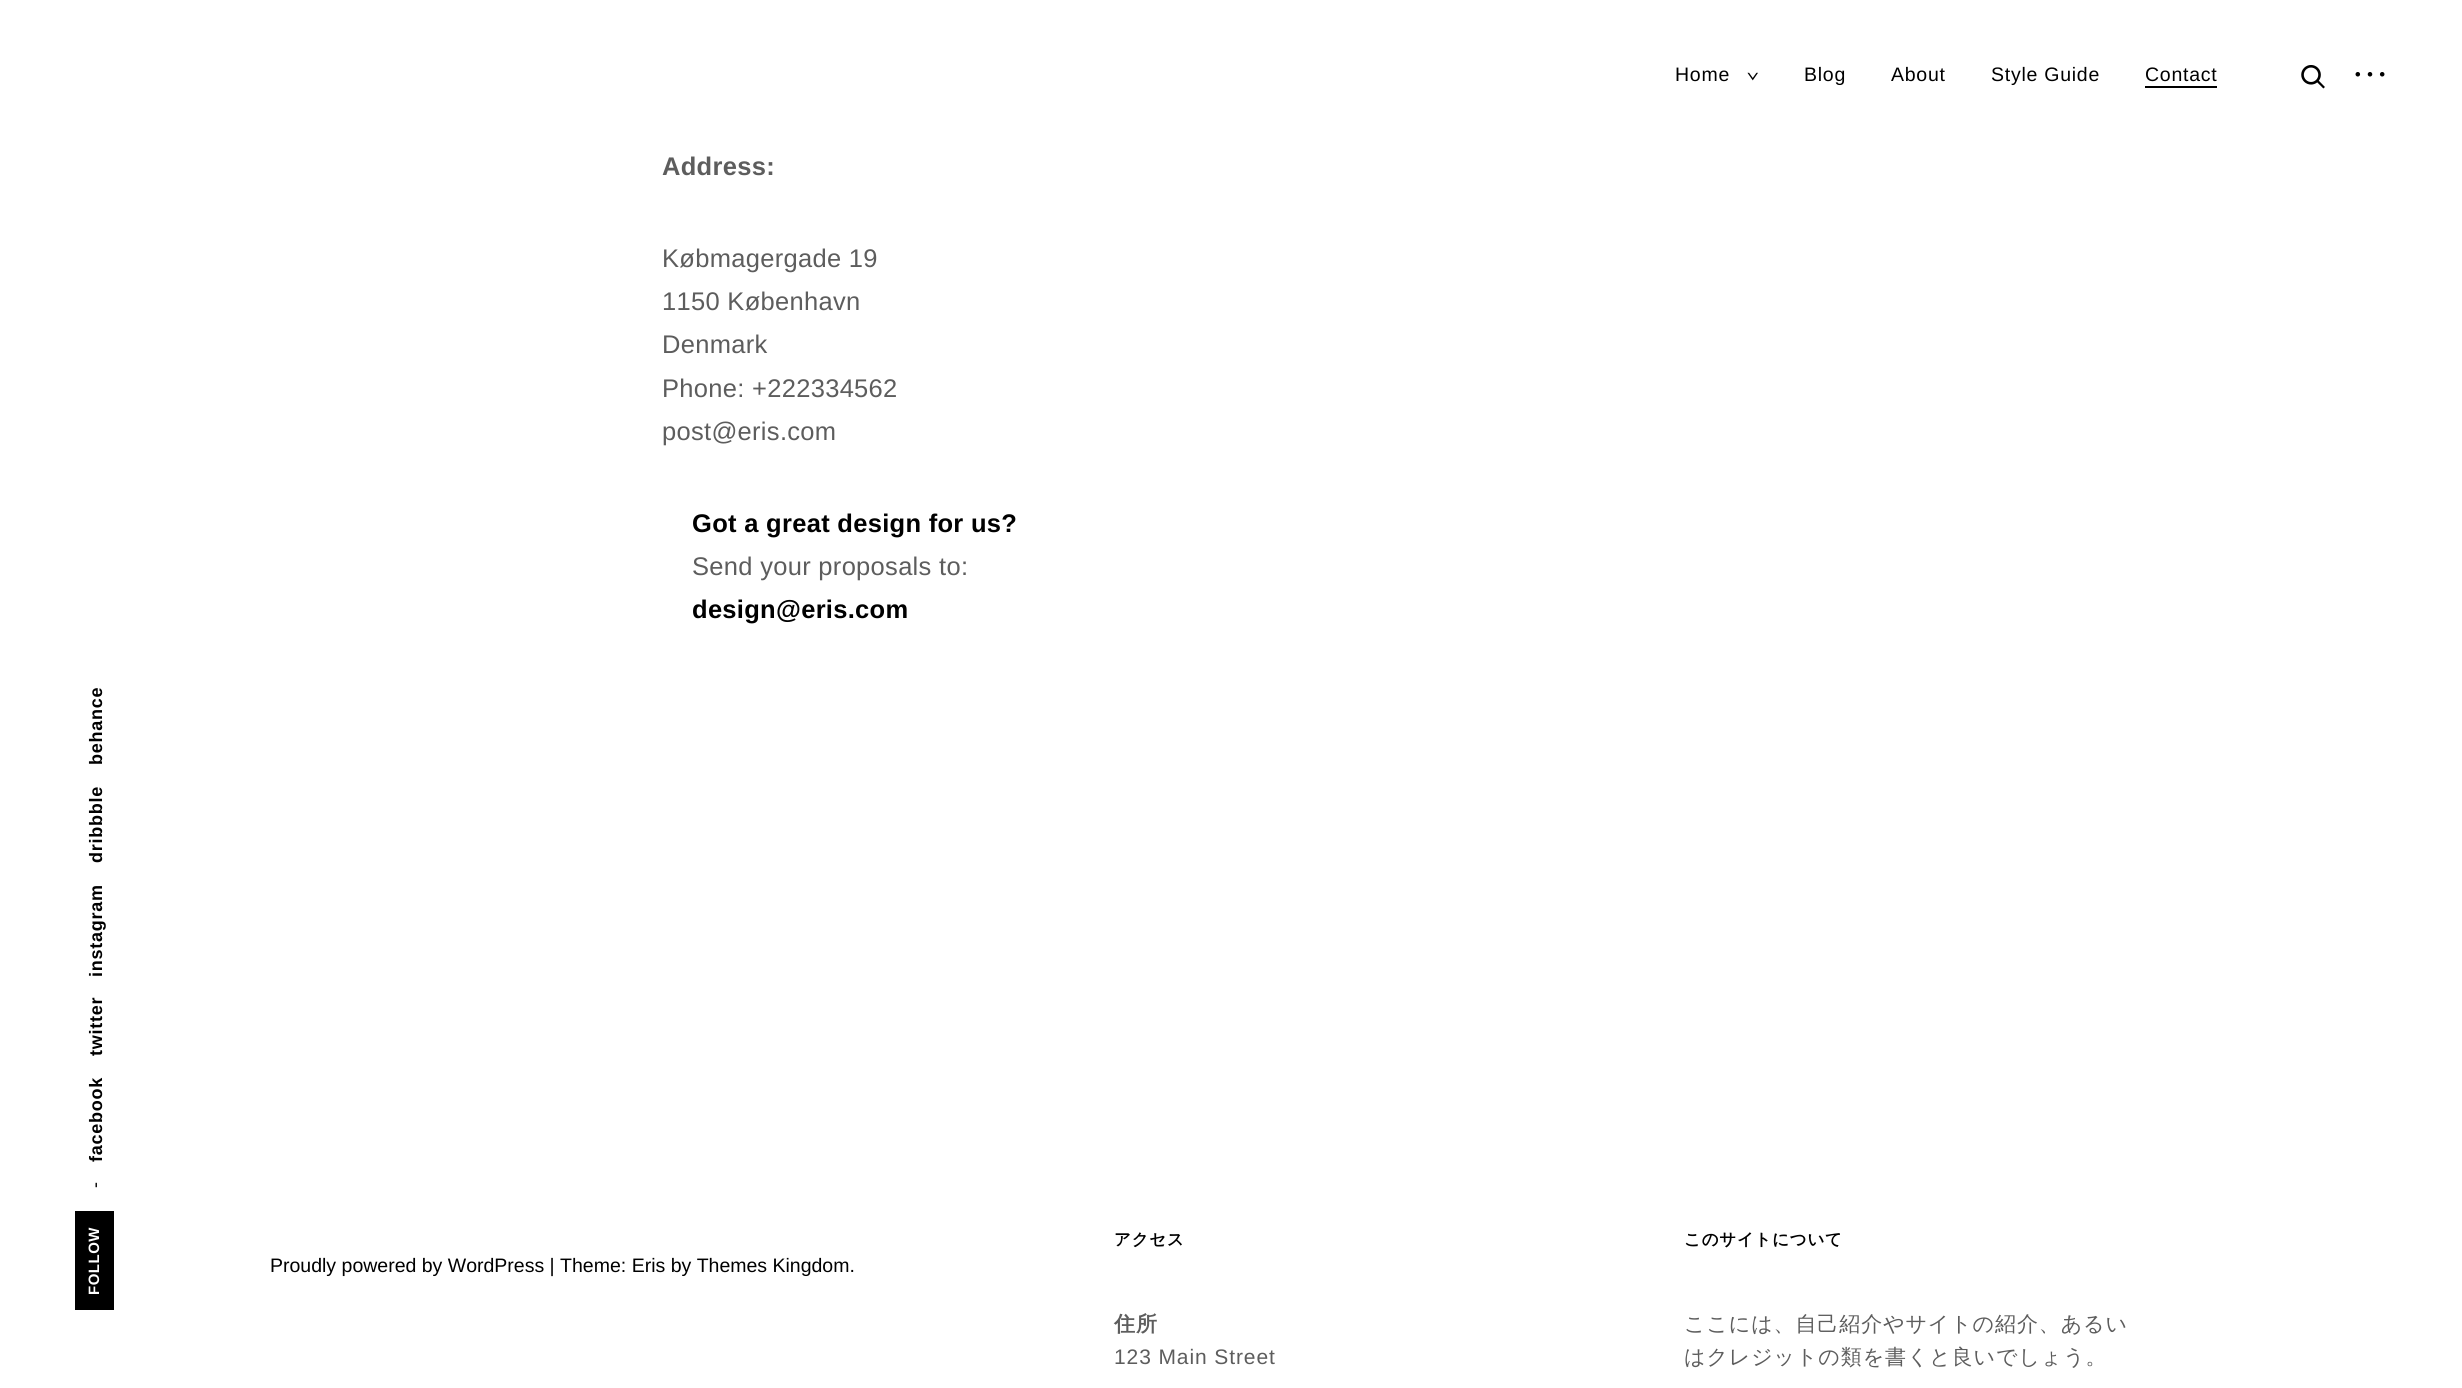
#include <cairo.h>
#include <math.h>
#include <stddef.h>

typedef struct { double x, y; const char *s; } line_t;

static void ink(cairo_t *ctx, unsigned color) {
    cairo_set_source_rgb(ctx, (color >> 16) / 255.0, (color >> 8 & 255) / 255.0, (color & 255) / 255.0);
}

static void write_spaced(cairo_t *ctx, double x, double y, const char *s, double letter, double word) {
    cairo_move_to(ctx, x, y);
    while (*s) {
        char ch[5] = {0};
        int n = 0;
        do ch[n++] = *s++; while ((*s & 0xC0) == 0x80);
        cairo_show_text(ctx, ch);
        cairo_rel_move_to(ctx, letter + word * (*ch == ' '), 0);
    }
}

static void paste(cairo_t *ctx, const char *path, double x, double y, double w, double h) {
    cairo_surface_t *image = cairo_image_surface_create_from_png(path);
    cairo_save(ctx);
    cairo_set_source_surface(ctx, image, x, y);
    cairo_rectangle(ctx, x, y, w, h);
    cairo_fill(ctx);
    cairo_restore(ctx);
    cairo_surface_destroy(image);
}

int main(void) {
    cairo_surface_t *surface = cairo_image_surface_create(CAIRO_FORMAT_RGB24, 2462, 1388);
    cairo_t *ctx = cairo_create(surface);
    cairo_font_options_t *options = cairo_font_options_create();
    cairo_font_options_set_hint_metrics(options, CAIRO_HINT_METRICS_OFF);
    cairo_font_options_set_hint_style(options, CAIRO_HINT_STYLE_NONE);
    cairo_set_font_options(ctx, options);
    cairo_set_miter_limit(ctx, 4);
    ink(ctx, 0xFFFFFF);
    cairo_paint(ctx);
    cairo_select_font_face(ctx, "Liberation Sans", CAIRO_FONT_SLANT_NORMAL, CAIRO_FONT_WEIGHT_NORMAL);
    cairo_set_font_size(ctx, 19.5);
    ink(ctx, 0x000000);
    write_spaced(ctx, 1675, 81, "Home", 0.75, 0);
    paste(ctx, "media/1.png", 1747, 72, 11, 9);
    {
        static const line_t items[] = {
            {1804, 81, "Blog"},
            {1891, 81, "About"},
            {1991, 81, "Style Guide"},
        };
        for (size_t i = 0; i < sizeof items / sizeof *items; i++) {
            write_spaced(ctx, items[i].x, items[i].y, items[i].s, 0.75, 0);
        }
    }
    cairo_rectangle(ctx, 2145, 86, 72, 2);
    cairo_fill(ctx);
    write_spaced(ctx, 2145, 81, "Contact", 0.75, 0);
    paste(ctx, "media/2.png", 2301, 65, 24, 24);
    paste(ctx, "media/3.png", 2355, 72, 30, 5);
    cairo_select_font_face(ctx, "Liberation Sans", CAIRO_FONT_SLANT_NORMAL, CAIRO_FONT_WEIGHT_BOLD);
    cairo_set_font_size(ctx, 25.5);
    ink(ctx, 0x5D5D5D);
    write_spaced(ctx, 662, 175, "Address:", 0.3, 0);
    cairo_select_font_face(ctx, "Liberation Sans", CAIRO_FONT_SLANT_NORMAL, CAIRO_FONT_WEIGHT_NORMAL);
    {
        static const line_t items[] = {
            {662, 267, "Købmagergade 19"},
            {662, 310, "1150 København"},
            {662, 353, "Denmark"},
            {662, 397, "Phone: +222334562"},
            {662, 440, "post@eris.com"},
        };
        for (size_t i = 0; i < sizeof items / sizeof *items; i++) {
            write_spaced(ctx, items[i].x, items[i].y, items[i].s, 0.3, 0);
        }
    }
    cairo_select_font_face(ctx, "Liberation Sans", CAIRO_FONT_SLANT_NORMAL, CAIRO_FONT_WEIGHT_BOLD);
    ink(ctx, 0x000000);
    write_spaced(ctx, 692, 532, "Got a great design for us?", 0.3, 0);
    cairo_select_font_face(ctx, "Liberation Sans", CAIRO_FONT_SLANT_NORMAL, CAIRO_FONT_WEIGHT_NORMAL);
    ink(ctx, 0x5D5D5D);
    write_spaced(ctx, 692, 575, "Send your proposals to:", 0.3, 0);
    cairo_select_font_face(ctx, "Liberation Sans", CAIRO_FONT_SLANT_NORMAL, CAIRO_FONT_WEIGHT_BOLD);
    ink(ctx, 0x000000);
    write_spaced(ctx, 692, 618, "design@eris.com", 0.3, 0);
    cairo_set_font_size(ctx, 18);
    cairo_save(ctx);
    cairo_translate(ctx, 102, 765);
    cairo_rotate(ctx, -90 * M_PI / 180);
    write_spaced(ctx, 0, 0, "behance", 0.75, 0);
    cairo_restore(ctx);
    cairo_save(ctx);
    cairo_translate(ctx, 102, 863);
    cairo_rotate(ctx, -90 * M_PI / 180);
    write_spaced(ctx, 0, 0, "dribbble", 0.75, 0);
    cairo_restore(ctx);
    cairo_save(ctx);
    cairo_translate(ctx, 102, 977);
    cairo_rotate(ctx, -90 * M_PI / 180);
    write_spaced(ctx, 0, 0, "instagram", 0.75, 0);
    cairo_restore(ctx);
    cairo_save(ctx);
    cairo_translate(ctx, 102, 1056);
    cairo_rotate(ctx, -90 * M_PI / 180);
    write_spaced(ctx, 0, 0, "twitter", 0.75, 0);
    cairo_restore(ctx);
    cairo_save(ctx);
    cairo_translate(ctx, 102, 1162);
    cairo_rotate(ctx, -90 * M_PI / 180);
    write_spaced(ctx, 0, 0, "facebook", 0.75, 0);
    cairo_restore(ctx);
    cairo_rectangle(ctx, 75, 1211, 39, 99);
    cairo_fill(ctx);
    cairo_select_font_face(ctx, "Liberation Sans", CAIRO_FONT_SLANT_NORMAL, CAIRO_FONT_WEIGHT_NORMAL);
    cairo_save(ctx);
    cairo_translate(ctx, 101, 1188);
    cairo_rotate(ctx, -90 * M_PI / 180);
    write_spaced(ctx, 0, 0, "-", 0.5, 0);
    cairo_restore(ctx);
    cairo_select_font_face(ctx, "Liberation Sans", CAIRO_FONT_SLANT_NORMAL, CAIRO_FONT_WEIGHT_BOLD);
    cairo_set_font_size(ctx, 15);
    ink(ctx, 0xFFFFFF);
    cairo_save(ctx);
    cairo_translate(ctx, 99, 1295);
    cairo_rotate(ctx, -90 * M_PI / 180);
    write_spaced(ctx, 0, 0, "FOLLOW", 0.5, 0);
    cairo_restore(ctx);
    cairo_select_font_face(ctx, "Liberation Sans", CAIRO_FONT_SLANT_NORMAL, CAIRO_FONT_WEIGHT_NORMAL);
    cairo_set_font_size(ctx, 19.5);
    ink(ctx, 0x000000);
    cairo_move_to(ctx, 270, 1272);
    cairo_show_text(ctx, "Proudly powered by WordPress | Theme: Eris by Themes Kingdom.");
    cairo_select_font_face(ctx, "WenQuanYi Zen Hei", CAIRO_FONT_SLANT_NORMAL, CAIRO_FONT_WEIGHT_BOLD);
    cairo_set_font_size(ctx, 16.5);
    write_spaced(ctx, 1114, 1245, "アクセス", 0.75, 0);
    cairo_set_font_size(ctx, 21);
    ink(ctx, 0x5D5D5D);
    write_spaced(ctx, 1114, 1331, "住所", 0.9, 0);
    cairo_select_font_face(ctx, "Liberation Sans", CAIRO_FONT_SLANT_NORMAL, CAIRO_FONT_WEIGHT_NORMAL);
    write_spaced(ctx, 1114, 1364, "123 Main Street", 0.9, 0);
    cairo_select_font_face(ctx, "WenQuanYi Zen Hei", CAIRO_FONT_SLANT_NORMAL, CAIRO_FONT_WEIGHT_BOLD);
    cairo_set_font_size(ctx, 16.5);
    ink(ctx, 0x000000);
    write_spaced(ctx, 1684, 1245, "このサイトについて", 0.75, 0);
    cairo_select_font_face(ctx, "WenQuanYi Zen Hei Medium", CAIRO_FONT_SLANT_NORMAL, CAIRO_FONT_WEIGHT_NORMAL);
    cairo_set_font_size(ctx, 21);
    ink(ctx, 0x5D5D5D);
    write_spaced(ctx, 1684, 1331, "ここには、自己紹介やサイトの紹介、あるい", 0.9, 0);
    write_spaced(ctx, 1684, 1364, "はクレジットの類を書くと良いでしょう。", 0.9, 0);
    cairo_surface_write_to_png(surface, "image.png");
    cairo_font_options_destroy(options);
    cairo_destroy(ctx);
    cairo_surface_destroy(surface);
    return 0;
}
